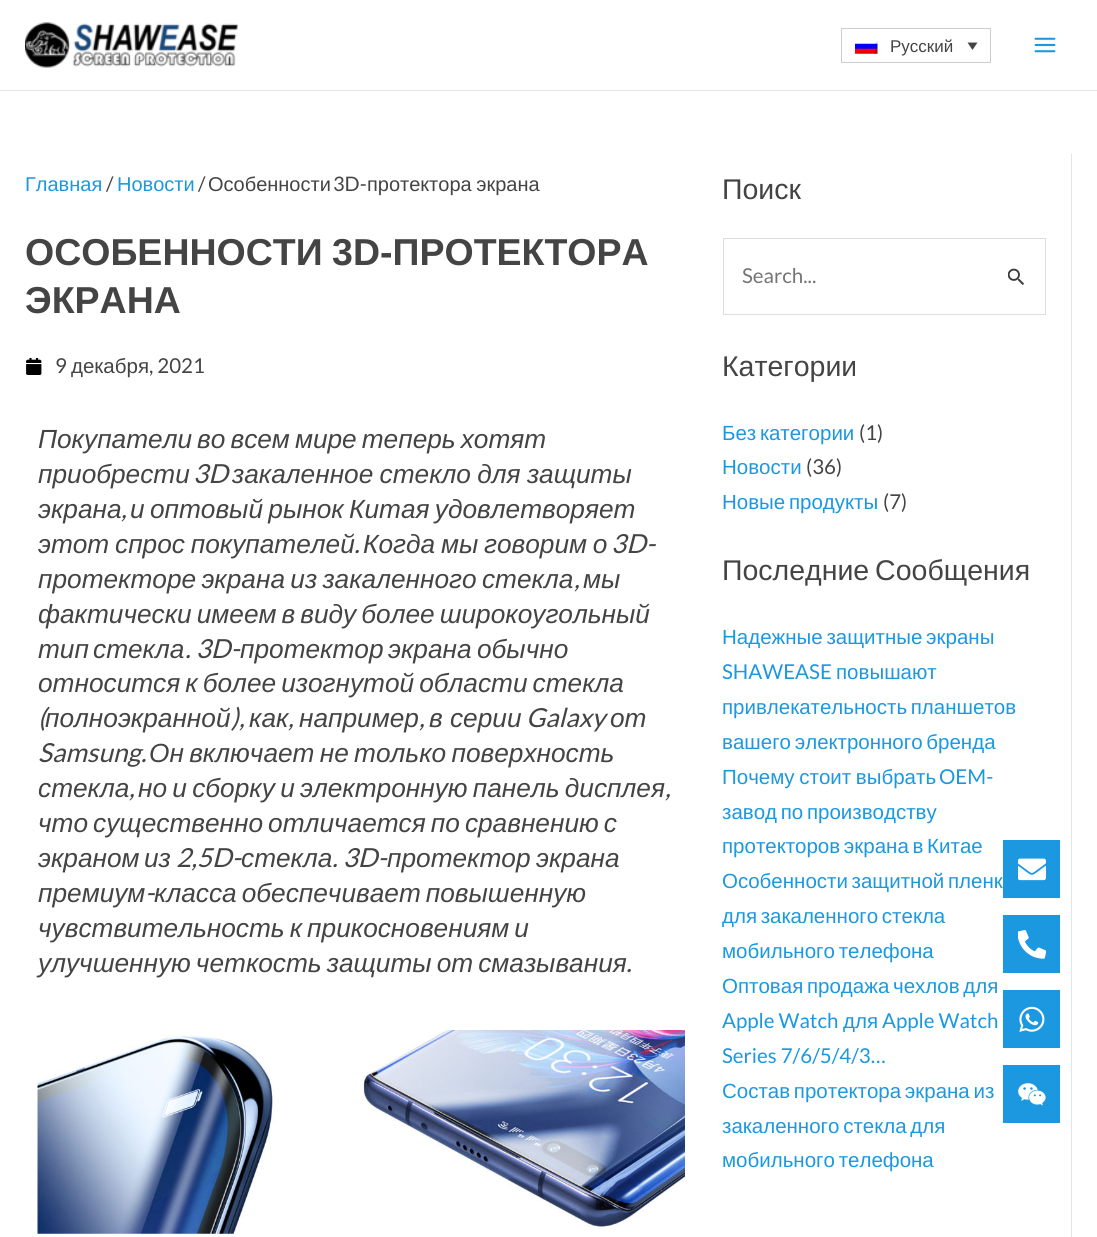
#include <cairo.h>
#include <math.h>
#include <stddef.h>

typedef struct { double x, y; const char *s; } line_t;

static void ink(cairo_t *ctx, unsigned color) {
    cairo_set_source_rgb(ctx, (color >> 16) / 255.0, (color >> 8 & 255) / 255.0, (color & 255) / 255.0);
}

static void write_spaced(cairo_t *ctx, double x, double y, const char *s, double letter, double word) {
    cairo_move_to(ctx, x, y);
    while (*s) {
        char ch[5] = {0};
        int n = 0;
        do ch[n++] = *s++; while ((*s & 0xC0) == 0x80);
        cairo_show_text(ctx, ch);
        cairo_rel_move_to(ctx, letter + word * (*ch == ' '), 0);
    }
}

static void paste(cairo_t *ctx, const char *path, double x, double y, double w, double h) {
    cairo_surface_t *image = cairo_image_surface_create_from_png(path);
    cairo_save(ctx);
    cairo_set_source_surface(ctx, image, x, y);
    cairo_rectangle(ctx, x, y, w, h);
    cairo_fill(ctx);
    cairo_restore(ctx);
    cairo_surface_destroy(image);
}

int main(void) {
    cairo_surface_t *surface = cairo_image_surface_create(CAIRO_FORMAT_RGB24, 1097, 1237);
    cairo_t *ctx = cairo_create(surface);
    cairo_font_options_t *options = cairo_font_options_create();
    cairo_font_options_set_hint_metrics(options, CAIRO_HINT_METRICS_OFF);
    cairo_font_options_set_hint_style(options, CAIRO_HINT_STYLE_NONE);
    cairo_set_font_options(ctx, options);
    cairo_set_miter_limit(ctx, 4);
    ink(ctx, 0xFFFFFF);
    cairo_paint(ctx);
    ink(ctx, 0xEAE6E6);
    cairo_rectangle(ctx, 0, 90, 1097, 1);
    cairo_fill(ctx);
    paste(ctx, "media/1.png", 25, 22, 213, 46);
    cairo_rectangle(ctx, 841.5, 28.5, 149, 34);
    ink(ctx, 0xCDCDCD);
    cairo_set_line_width(ctx, 1);
    cairo_stroke(ctx);
    paste(ctx, "media/2.png", 855, 41, 23, 13);
    cairo_select_font_face(ctx, "Liberation Sans", CAIRO_FONT_SLANT_NORMAL, CAIRO_FONT_WEIGHT_NORMAL);
    cairo_set_font_size(ctx, 17);
    ink(ctx, 0x444444);
    cairo_move_to(ctx, 890, 52);
    cairo_show_text(ctx, "Русский");
    cairo_new_path(ctx);
    cairo_move_to(ctx, 967.5, 42.5);
    cairo_line_to(ctx, 977.5, 42.5);
    cairo_line_to(ctx, 972.5, 50);
    cairo_close_path(ctx);
    cairo_fill(ctx);
    paste(ctx, "media/3.png", 1034, 37, 22, 16);
    cairo_set_font_size(ctx, 20);
    ink(ctx, 0x1B98E0);
    cairo_move_to(ctx, 25, 191);
    cairo_show_text(ctx, "Главная");
    cairo_select_font_face(ctx, "Lato", CAIRO_FONT_SLANT_NORMAL, CAIRO_FONT_WEIGHT_NORMAL);
    ink(ctx, 0x444444);
    cairo_move_to(ctx, 106, 191);
    cairo_show_text(ctx, "/");
    cairo_select_font_face(ctx, "Liberation Sans", CAIRO_FONT_SLANT_NORMAL, CAIRO_FONT_WEIGHT_NORMAL);
    ink(ctx, 0x1B98E0);
    cairo_move_to(ctx, 117, 191);
    cairo_show_text(ctx, "Новости");
    cairo_select_font_face(ctx, "Lato", CAIRO_FONT_SLANT_NORMAL, CAIRO_FONT_WEIGHT_NORMAL);
    ink(ctx, 0x444444);
    cairo_move_to(ctx, 198, 191);
    cairo_show_text(ctx, "/");
    cairo_select_font_face(ctx, "Liberation Sans", CAIRO_FONT_SLANT_NORMAL, CAIRO_FONT_WEIGHT_NORMAL);
    cairo_move_to(ctx, 208, 191);
    cairo_show_text(ctx, "Особенности");
    cairo_select_font_face(ctx, "Lato", CAIRO_FONT_SLANT_NORMAL, CAIRO_FONT_WEIGHT_NORMAL);
    cairo_move_to(ctx, 333, 191);
    cairo_show_text(ctx, "3D-");
    cairo_select_font_face(ctx, "Liberation Sans", CAIRO_FONT_SLANT_NORMAL, CAIRO_FONT_WEIGHT_NORMAL);
    write_spaced(ctx, 367, 191, "протектора экрана", 0, -1);
    cairo_select_font_face(ctx, "Liberation Sans", CAIRO_FONT_SLANT_NORMAL, CAIRO_FONT_WEIGHT_BOLD);
    cairo_set_font_size(ctx, 37.5);
    write_spaced(ctx, 25, 265, "ОСОБЕННОСТИ 3D-ПРОТЕКТОРА", 0, -1);
    cairo_move_to(ctx, 25, 313);
    cairo_show_text(ctx, "ЭКРАНА");
    paste(ctx, "media/4.png", 26, 358, 16, 17);
    cairo_select_font_face(ctx, "Lato", CAIRO_FONT_SLANT_NORMAL, CAIRO_FONT_WEIGHT_NORMAL);
    cairo_set_font_size(ctx, 20.5);
    cairo_move_to(ctx, 55, 373);
    cairo_show_text(ctx, "9");
    cairo_select_font_face(ctx, "Liberation Sans", CAIRO_FONT_SLANT_NORMAL, CAIRO_FONT_WEIGHT_NORMAL);
    cairo_move_to(ctx, 71, 373);
    cairo_show_text(ctx, "декабря");
    cairo_select_font_face(ctx, "Lato", CAIRO_FONT_SLANT_NORMAL, CAIRO_FONT_WEIGHT_NORMAL);
    cairo_move_to(ctx, 149, 373);
    cairo_show_text(ctx, ", 2021");
    cairo_select_font_face(ctx, "Liberation Sans", CAIRO_FONT_SLANT_ITALIC, CAIRO_FONT_WEIGHT_NORMAL);
    cairo_set_font_size(ctx, 26.25);
    write_spaced(ctx, 38, 448, "Покупатели во всем мире теперь хотят", 0, -2.25);
    cairo_move_to(ctx, 38, 483);
    cairo_show_text(ctx, "приобрести");
    cairo_select_font_face(ctx, "Lato", CAIRO_FONT_SLANT_ITALIC, CAIRO_FONT_WEIGHT_NORMAL);
    cairo_move_to(ctx, 193, 483);
    cairo_show_text(ctx, "3D");
    cairo_select_font_face(ctx, "Liberation Sans", CAIRO_FONT_SLANT_ITALIC, CAIRO_FONT_WEIGHT_NORMAL);
    write_spaced(ctx, 232, 483, "закаленное стекло для защиты", 0, -1);
    cairo_move_to(ctx, 38, 518);
    cairo_show_text(ctx, "экрана");
    cairo_select_font_face(ctx, "Lato", CAIRO_FONT_SLANT_ITALIC, CAIRO_FONT_WEIGHT_NORMAL);
    cairo_move_to(ctx, 121, 518);
    cairo_show_text(ctx, ",");
    cairo_select_font_face(ctx, "Liberation Sans", CAIRO_FONT_SLANT_ITALIC, CAIRO_FONT_WEIGHT_NORMAL);
    write_spaced(ctx, 130, 518, "и оптовый рынок Китая удовлетворяет", 0, -2);
    write_spaced(ctx, 38, 553, "этот спрос покупателей", 0, -1.5);
    cairo_select_font_face(ctx, "Lato", CAIRO_FONT_SLANT_ITALIC, CAIRO_FONT_WEIGHT_NORMAL);
    cairo_move_to(ctx, 354, 553);
    cairo_show_text(ctx, ".");
    cairo_select_font_face(ctx, "Liberation Sans", CAIRO_FONT_SLANT_ITALIC, CAIRO_FONT_WEIGHT_NORMAL);
    write_spaced(ctx, 363, 553, "Когда мы говорим о", 0, -1.5);
    cairo_select_font_face(ctx, "Lato", CAIRO_FONT_SLANT_ITALIC, CAIRO_FONT_WEIGHT_NORMAL);
    cairo_move_to(ctx, 611, 553);
    cairo_show_text(ctx, "3D-");
    cairo_select_font_face(ctx, "Liberation Sans", CAIRO_FONT_SLANT_ITALIC, CAIRO_FONT_WEIGHT_NORMAL);
    write_spaced(ctx, 38, 588, "протекторе экрана из закаленного стекла", 0, -2);
    cairo_select_font_face(ctx, "Lato", CAIRO_FONT_SLANT_ITALIC, CAIRO_FONT_WEIGHT_NORMAL);
    cairo_move_to(ctx, 574, 588);
    cairo_show_text(ctx, ",");
    cairo_select_font_face(ctx, "Liberation Sans", CAIRO_FONT_SLANT_ITALIC, CAIRO_FONT_WEIGHT_NORMAL);
    cairo_move_to(ctx, 583, 588);
    cairo_show_text(ctx, "мы");
    write_spaced(ctx, 38, 623, "фактически имеем в виду более широкоугольный", 0, -2.25);
    cairo_move_to(ctx, 38, 658);
    cairo_show_text(ctx, "тип");
    cairo_move_to(ctx, 93, 658);
    cairo_show_text(ctx, "стекла");
    cairo_select_font_face(ctx, "Lato", CAIRO_FONT_SLANT_ITALIC, CAIRO_FONT_WEIGHT_NORMAL);
    cairo_move_to(ctx, 185, 658);
    cairo_show_text(ctx, ". 3D-");
    cairo_select_font_face(ctx, "Liberation Sans", CAIRO_FONT_SLANT_ITALIC, CAIRO_FONT_WEIGHT_NORMAL);
    {
        static const line_t items[] = {
            {240, 658, "протектор"},
            {388, 658, "экрана"},
            {477, 658, "обычно"},
        };
        for (size_t i = 0; i < sizeof items / sizeof *items; i++) {
            cairo_move_to(ctx, items[i].x, items[i].y);
            cairo_show_text(ctx, items[i].s);
        }
    }
    write_spaced(ctx, 38, 692, "относится к более изогнутой области стекла", 0, -2.25);
    cairo_select_font_face(ctx, "Lato", CAIRO_FONT_SLANT_ITALIC, CAIRO_FONT_WEIGHT_NORMAL);
    cairo_move_to(ctx, 38, 727);
    cairo_show_text(ctx, "(");
    cairo_move_to(ctx, 231, 727);
    cairo_show_text(ctx, "),");
    cairo_select_font_face(ctx, "Liberation Sans", CAIRO_FONT_SLANT_ITALIC, CAIRO_FONT_WEIGHT_NORMAL);
    cairo_move_to(ctx, 45, 727);
    cairo_show_text(ctx, "полноэкранной");
    cairo_move_to(ctx, 249, 727);
    cairo_show_text(ctx, "как");
    cairo_select_font_face(ctx, "Lato", CAIRO_FONT_SLANT_ITALIC, CAIRO_FONT_WEIGHT_NORMAL);
    cairo_move_to(ctx, 288, 727);
    cairo_show_text(ctx, ",");
    cairo_select_font_face(ctx, "Liberation Sans", CAIRO_FONT_SLANT_ITALIC, CAIRO_FONT_WEIGHT_NORMAL);
    cairo_move_to(ctx, 299, 727);
    cairo_show_text(ctx, "например");
    cairo_select_font_face(ctx, "Lato", CAIRO_FONT_SLANT_ITALIC, CAIRO_FONT_WEIGHT_NORMAL);
    cairo_move_to(ctx, 419, 727);
    cairo_show_text(ctx, ",");
    cairo_select_font_face(ctx, "Liberation Sans", CAIRO_FONT_SLANT_ITALIC, CAIRO_FONT_WEIGHT_NORMAL);
    cairo_move_to(ctx, 429, 727);
    cairo_show_text(ctx, "в серии");
    cairo_select_font_face(ctx, "Lato", CAIRO_FONT_SLANT_ITALIC, CAIRO_FONT_WEIGHT_NORMAL);
    cairo_move_to(ctx, 526, 727);
    cairo_show_text(ctx, "Galaxy");
    cairo_select_font_face(ctx, "Liberation Sans", CAIRO_FONT_SLANT_ITALIC, CAIRO_FONT_WEIGHT_NORMAL);
    cairo_move_to(ctx, 610, 727);
    cairo_show_text(ctx, "от");
    cairo_select_font_face(ctx, "Lato", CAIRO_FONT_SLANT_ITALIC, CAIRO_FONT_WEIGHT_NORMAL);
    cairo_move_to(ctx, 38, 762);
    cairo_show_text(ctx, "Samsung.");
    cairo_select_font_face(ctx, "Liberation Sans", CAIRO_FONT_SLANT_ITALIC, CAIRO_FONT_WEIGHT_NORMAL);
    write_spaced(ctx, 149, 762, "Он включает не только поверхность", 0, -2);
    cairo_move_to(ctx, 38, 797);
    cairo_show_text(ctx, "стекла");
    cairo_select_font_face(ctx, "Lato", CAIRO_FONT_SLANT_ITALIC, CAIRO_FONT_WEIGHT_NORMAL);
    cairo_move_to(ctx, 129, 797);
    cairo_show_text(ctx, ",");
    cairo_select_font_face(ctx, "Liberation Sans", CAIRO_FONT_SLANT_ITALIC, CAIRO_FONT_WEIGHT_NORMAL);
    write_spaced(ctx, 138, 797, "но и сборку и электронную панель дисплея", 0, -2);
    cairo_select_font_face(ctx, "Lato", CAIRO_FONT_SLANT_ITALIC, CAIRO_FONT_WEIGHT_NORMAL);
    cairo_move_to(ctx, 665, 797);
    cairo_show_text(ctx, ",");
    cairo_select_font_face(ctx, "Liberation Sans", CAIRO_FONT_SLANT_ITALIC, CAIRO_FONT_WEIGHT_NORMAL);
    write_spaced(ctx, 38, 832, "что существенно отличается по сравнению с", 0, -2.25);
    cairo_move_to(ctx, 38, 867);
    cairo_show_text(ctx, "экраном");
    cairo_move_to(ctx, 144, 867);
    cairo_show_text(ctx, "из");
    cairo_select_font_face(ctx, "Lato", CAIRO_FONT_SLANT_ITALIC, CAIRO_FONT_WEIGHT_NORMAL);
    cairo_move_to(ctx, 176, 867);
    cairo_show_text(ctx, "2,5D-");
    cairo_select_font_face(ctx, "Liberation Sans", CAIRO_FONT_SLANT_ITALIC, CAIRO_FONT_WEIGHT_NORMAL);
    cairo_move_to(ctx, 241, 867);
    cairo_show_text(ctx, "стекла");
    cairo_select_font_face(ctx, "Lato", CAIRO_FONT_SLANT_ITALIC, CAIRO_FONT_WEIGHT_NORMAL);
    cairo_move_to(ctx, 332, 867);
    cairo_show_text(ctx, ". 3D-");
    cairo_select_font_face(ctx, "Liberation Sans", CAIRO_FONT_SLANT_ITALIC, CAIRO_FONT_WEIGHT_NORMAL);
    {
        static const line_t items[] = {
            {387, 867, "протектор"},
            {536, 867, "экрана"},
            {38, 902, "премиум"},
        };
        for (size_t i = 0; i < sizeof items / sizeof *items; i++) {
            cairo_move_to(ctx, items[i].x, items[i].y);
            cairo_show_text(ctx, items[i].s);
        }
    }
    cairo_select_font_face(ctx, "Lato", CAIRO_FONT_SLANT_ITALIC, CAIRO_FONT_WEIGHT_NORMAL);
    cairo_move_to(ctx, 145, 902);
    cairo_show_text(ctx, "-");
    cairo_select_font_face(ctx, "Liberation Sans", CAIRO_FONT_SLANT_ITALIC, CAIRO_FONT_WEIGHT_NORMAL);
    {
        static const line_t items[] = {
            {154, 902, "класса обеспечивает повышенную"},
            {38, 937, "чувствительность к прикосновениям и"},
            {38, 972, "улучшенную четкость защиты от смазывания"},
        };
        for (size_t i = 0; i < sizeof items / sizeof *items; i++) {
            write_spaced(ctx, items[i].x, items[i].y, items[i].s, 0, -2.25);
        }
    }
    cairo_select_font_face(ctx, "Lato", CAIRO_FONT_SLANT_ITALIC, CAIRO_FONT_WEIGHT_NORMAL);
    cairo_move_to(ctx, 626, 972);
    cairo_show_text(ctx, ".");
    paste(ctx, "media/5.png", 37, 1030, 648, 204);
    ink(ctx, 0xE4E4E4);
    cairo_rectangle(ctx, 1071, 154, 1, 1083);
    cairo_fill(ctx);
    cairo_select_font_face(ctx, "Liberation Sans", CAIRO_FONT_SLANT_NORMAL, CAIRO_FONT_WEIGHT_NORMAL);
    cairo_set_font_size(ctx, 28.5);
    ink(ctx, 0x444444);
    cairo_move_to(ctx, 722, 199);
    cairo_show_text(ctx, "Поиск");
    cairo_rectangle(ctx, 723.5, 238.5, 322, 76);
    ink(ctx, 0xDDDDDD);
    cairo_stroke(ctx);
    cairo_select_font_face(ctx, "Lato", CAIRO_FONT_SLANT_NORMAL, CAIRO_FONT_WEIGHT_NORMAL);
    cairo_set_font_size(ctx, 20.5);
    ink(ctx, 0x757575);
    cairo_move_to(ctx, 742, 283);
    cairo_show_text(ctx, "Search...");
    paste(ctx, "media/6.png", 1008, 268, 16, 17);
    cairo_select_font_face(ctx, "Liberation Sans", CAIRO_FONT_SLANT_NORMAL, CAIRO_FONT_WEIGHT_NORMAL);
    cairo_set_font_size(ctx, 28.5);
    ink(ctx, 0x444444);
    cairo_move_to(ctx, 722, 376);
    cairo_show_text(ctx, "Категории");
    cairo_set_font_size(ctx, 20.5);
    ink(ctx, 0x1B98E0);
    write_spaced(ctx, 722, 440, "Без категории", 0, -2);
    cairo_select_font_face(ctx, "Lato", CAIRO_FONT_SLANT_NORMAL, CAIRO_FONT_WEIGHT_NORMAL);
    ink(ctx, 0x444444);
    cairo_move_to(ctx, 859, 440);
    cairo_show_text(ctx, "(1)");
    cairo_select_font_face(ctx, "Liberation Sans", CAIRO_FONT_SLANT_NORMAL, CAIRO_FONT_WEIGHT_NORMAL);
    ink(ctx, 0x1B98E0);
    cairo_move_to(ctx, 722, 474);
    cairo_show_text(ctx, "Новости");
    cairo_select_font_face(ctx, "Lato", CAIRO_FONT_SLANT_NORMAL, CAIRO_FONT_WEIGHT_NORMAL);
    ink(ctx, 0x444444);
    cairo_move_to(ctx, 806, 474);
    cairo_show_text(ctx, "(36)");
    cairo_select_font_face(ctx, "Liberation Sans", CAIRO_FONT_SLANT_NORMAL, CAIRO_FONT_WEIGHT_NORMAL);
    ink(ctx, 0x1B98E0);
    write_spaced(ctx, 722, 509, "Новые продукты", 0, -2);
    cairo_select_font_face(ctx, "Lato", CAIRO_FONT_SLANT_NORMAL, CAIRO_FONT_WEIGHT_NORMAL);
    ink(ctx, 0x444444);
    cairo_move_to(ctx, 883, 509);
    cairo_show_text(ctx, "(7)");
    cairo_select_font_face(ctx, "Liberation Sans", CAIRO_FONT_SLANT_NORMAL, CAIRO_FONT_WEIGHT_NORMAL);
    cairo_set_font_size(ctx, 28.5);
    write_spaced(ctx, 722, 580, "Последние Сообщения", 0, -2);
    cairo_set_font_size(ctx, 20.5);
    ink(ctx, 0x1B98E0);
    write_spaced(ctx, 722, 644, "Надежные защитные экраны", 0, -2);
    cairo_select_font_face(ctx, "Lato", CAIRO_FONT_SLANT_NORMAL, CAIRO_FONT_WEIGHT_NORMAL);
    cairo_move_to(ctx, 722, 679);
    cairo_show_text(ctx, "SHAWEASE");
    cairo_select_font_face(ctx, "Liberation Sans", CAIRO_FONT_SLANT_NORMAL, CAIRO_FONT_WEIGHT_NORMAL);
    cairo_move_to(ctx, 836, 679);
    cairo_show_text(ctx, "повышают");
    write_spaced(ctx, 722, 714, "привлекательность планшетов", 0, -2);
    write_spaced(ctx, 722, 749, "вашего электронного бренда", 0, -2);
    write_spaced(ctx, 722, 784, "Почему стоит выбрать", 0, -1);
    cairo_select_font_face(ctx, "Lato", CAIRO_FONT_SLANT_NORMAL, CAIRO_FONT_WEIGHT_NORMAL);
    cairo_move_to(ctx, 939, 784);
    cairo_show_text(ctx, "OEM-");
    cairo_select_font_face(ctx, "Liberation Sans", CAIRO_FONT_SLANT_NORMAL, CAIRO_FONT_WEIGHT_NORMAL);
    {
        static const line_t items[] = {
            {722, 819, "завод по производству"},
            {722, 853, "протекторов экрана в Китае"},
            {722, 888, "Особенности защитной пленк"},
            {722, 923, "для закаленного стекла"},
            {722, 958, "мобильного телефона"},
            {722, 993, "Оптовая продажа чехлов для"},
        };
        for (size_t i = 0; i < sizeof items / sizeof *items; i++) {
            write_spaced(ctx, items[i].x, items[i].y, items[i].s, 0, -2);
        }
    }
    cairo_select_font_face(ctx, "Lato", CAIRO_FONT_SLANT_NORMAL, CAIRO_FONT_WEIGHT_NORMAL);
    cairo_move_to(ctx, 722, 1028);
    cairo_show_text(ctx, "Apple Watch");
    cairo_select_font_face(ctx, "Liberation Sans", CAIRO_FONT_SLANT_NORMAL, CAIRO_FONT_WEIGHT_NORMAL);
    cairo_move_to(ctx, 843, 1028);
    cairo_show_text(ctx, "для");
    cairo_select_font_face(ctx, "Lato", CAIRO_FONT_SLANT_NORMAL, CAIRO_FONT_WEIGHT_NORMAL);
    cairo_move_to(ctx, 882, 1028);
    cairo_show_text(ctx, "Apple Watch");
    cairo_move_to(ctx, 722, 1063);
    cairo_show_text(ctx, "Series 7/6/5/4/3…");
    cairo_select_font_face(ctx, "Liberation Sans", CAIRO_FONT_SLANT_NORMAL, CAIRO_FONT_WEIGHT_NORMAL);
    {
        static const line_t items[] = {
            {722, 1098, "Состав протектора экрана из"},
            {722, 1133, "закаленного стекла для"},
            {722, 1167, "мобильного телефона"},
        };
        for (size_t i = 0; i < sizeof items / sizeof *items; i++) {
            write_spaced(ctx, items[i].x, items[i].y, items[i].s, 0, -2);
        }
    }
    cairo_rectangle(ctx, 1003, 840, 57, 58);
    cairo_fill(ctx);
    paste(ctx, "media/7.png", 1018, 858, 28, 23);
    cairo_rectangle(ctx, 1003, 915, 57, 58);
    cairo_fill(ctx);
    paste(ctx, "media/8.png", 1018, 930, 28, 29);
    cairo_rectangle(ctx, 1003, 990, 57, 58);
    cairo_fill(ctx);
    paste(ctx, "media/9.png", 1019, 1006, 26, 26);
    cairo_rectangle(ctx, 1003, 1065, 57, 58);
    cairo_fill(ctx);
    paste(ctx, "media/10.png", 1018, 1083, 28, 23);
    cairo_surface_write_to_png(surface, "image.png");
    cairo_font_options_destroy(options);
    cairo_destroy(ctx);
    cairo_surface_destroy(surface);
    return 0;
}
